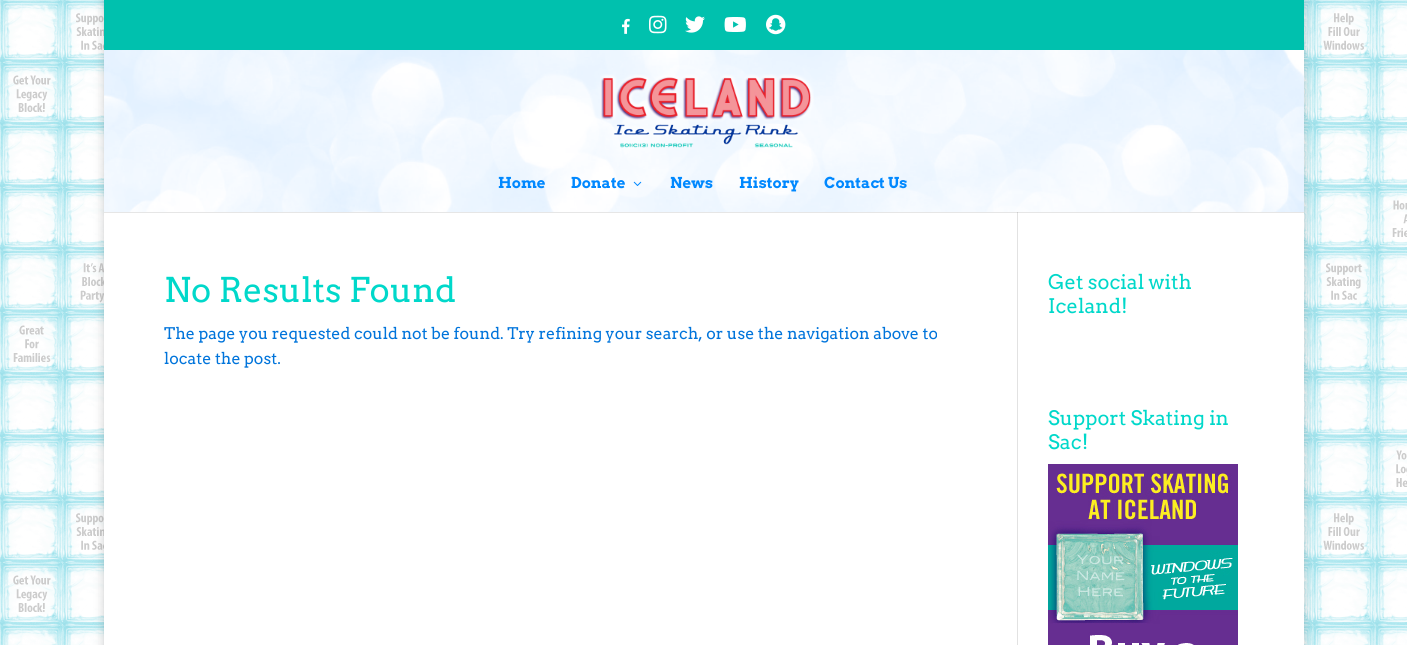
#include <cairo.h>
#include <math.h>
#include <stddef.h>

typedef struct { double x, y; const char *s; } line_t;

static void ink(cairo_t *ctx, unsigned color) {
    cairo_set_source_rgb(ctx, (color >> 16) / 255.0, (color >> 8 & 255) / 255.0, (color & 255) / 255.0);
}

static void round_path(cairo_t *ctx, double x, double y, double w, double h, double r) {
    cairo_new_sub_path(ctx);
    cairo_arc(ctx, x + w - r, y + h - r, r, 0, M_PI / 2);
    cairo_arc(ctx, x + r, y + h - r, r, M_PI / 2, M_PI);
    cairo_arc(ctx, x + r, y + r, r, M_PI, 1.5 * M_PI);
    cairo_arc(ctx, x + w - r, y + r, r, 1.5 * M_PI, 2 * M_PI);
    cairo_close_path(ctx);
}

static void blur_box(cairo_t *ctx, double x, double y, double w, double h, double r, double blur, double alpha) {
    cairo_push_group_with_content(ctx, CAIRO_CONTENT_ALPHA);
    cairo_set_operator(ctx, CAIRO_OPERATOR_SOURCE);
    for (int i = 15; i >= -15 && fmin(w, h) + blur * i / 3 > 0; i -= 2) {
        double e = blur * i / 6;
        cairo_set_source_rgba(ctx, 0, 0, 0, alpha * erfc((i - 1) / 8.5) / 2);
        round_path(ctx, x - e, y - e, w + 2 * e, h + 2 * e, fmax(0, fmin(r + e + blur * .6, fmin(w, h) / 2 + e)));
        cairo_fill(ctx);
    }
    cairo_pattern_t *soft = cairo_pop_group(ctx);
    cairo_mask(ctx, soft);
    cairo_pattern_destroy(soft);
}

static void paste(cairo_t *ctx, const char *path, double x, double y, double w, double h) {
    cairo_surface_t *image = cairo_image_surface_create_from_png(path);
    cairo_save(ctx);
    cairo_set_source_surface(ctx, image, x, y);
    cairo_rectangle(ctx, x, y, w, h);
    cairo_fill(ctx);
    cairo_restore(ctx);
    cairo_surface_destroy(image);
}

int main(void) {
    cairo_surface_t *surface = cairo_image_surface_create(CAIRO_FORMAT_RGB24, 1407, 645);
    cairo_t *ctx = cairo_create(surface);
    cairo_font_options_t *options = cairo_font_options_create();
    cairo_font_options_set_hint_metrics(options, CAIRO_HINT_METRICS_OFF);
    cairo_font_options_set_hint_style(options, CAIRO_HINT_STYLE_NONE);
    cairo_set_font_options(ctx, options);
    cairo_set_miter_limit(ctx, 4);
    ink(ctx, 0xFFFFFF);
    cairo_paint(ctx);
    paste(ctx, "media/1.png", 0, 0, 1407, 645);
    ink(ctx, 0x000000);
    blur_box(ctx, 104, 0, 1200, 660, 0, 5, 0.2);
    ink(ctx, 0x00C1AE);
    cairo_rectangle(ctx, 104, 0, 1200, 50);
    cairo_fill(ctx);
    paste(ctx, "media/2.png", 622, 18, 8, 16);
    paste(ctx, "media/3.png", 649, 15, 18, 19);
    paste(ctx, "media/4.png", 685, 16, 20, 17);
    paste(ctx, "media/5.png", 724, 17, 22, 15);
    paste(ctx, "media/6.png", 766, 14, 20, 21);
    ink(ctx, 0xFFFFFF);
    cairo_rectangle(ctx, 104, 50, 1200, 595);
    cairo_fill(ctx);
    ink(ctx, 0xE2E2E2);
    cairo_rectangle(ctx, 1017, 212, 1, 433);
    cairo_fill(ctx);
    cairo_set_source_rgba(ctx, 0, 0, 0, 0.1);
    cairo_rectangle(ctx, 104, 212, 1200, 1);
    cairo_fill(ctx);
    paste(ctx, "media/7.png", 104, 50, 1200, 162);
    paste(ctx, "media/8.png", 600, 74, 214, 74);
    cairo_select_font_face(ctx, "Arvo", CAIRO_FONT_SLANT_NORMAL, CAIRO_FONT_WEIGHT_BOLD);
    cairo_set_font_size(ctx, 15);
    ink(ctx, 0x0088FF);
    cairo_move_to(ctx, 498, 188);
    cairo_show_text(ctx, "Home");
    cairo_move_to(ctx, 571, 188);
    cairo_show_text(ctx, "Donate");
    paste(ctx, "media/9.png", 633, 181, 9, 5);
    {
        static const line_t items[] = {
            {670, 188, "News"},
            {739, 188, "History"},
            {824, 188, "Contact Us"},
        };
        for (size_t i = 0; i < sizeof items / sizeof *items; i++) {
            cairo_move_to(ctx, items[i].x, items[i].y);
            cairo_show_text(ctx, items[i].s);
        }
    }
    cairo_select_font_face(ctx, "Arvo", CAIRO_FONT_SLANT_NORMAL, CAIRO_FONT_WEIGHT_NORMAL);
    cairo_set_font_size(ctx, 34);
    ink(ctx, 0x00D8CA);
    cairo_move_to(ctx, 164, 302);
    cairo_show_text(ctx, "No Results Found");
    cairo_set_font_size(ctx, 16);
    ink(ctx, 0x0074DB);
    cairo_move_to(ctx, 164, 339);
    cairo_show_text(ctx, "The page you requested could not be found. Try refining your search, or use the navigation above to");
    cairo_move_to(ctx, 164, 364);
    cairo_show_text(ctx, "locate the post.");
    cairo_set_font_size(ctx, 20);
    ink(ctx, 0x00D8CA);
    {
        static const line_t items[] = {
            {1048, 289, "Get social with"},
            {1048, 313, "Iceland!"},
            {1048, 425, "Support Skating in"},
            {1048, 449, "Sac!"},
        };
        for (size_t i = 0; i < sizeof items / sizeof *items; i++) {
            cairo_move_to(ctx, items[i].x, items[i].y);
            cairo_show_text(ctx, items[i].s);
        }
    }
    paste(ctx, "media/10.png", 1048, 464, 190, 181);
    cairo_surface_write_to_png(surface, "image.png");
    cairo_font_options_destroy(options);
    cairo_destroy(ctx);
    cairo_surface_destroy(surface);
    return 0;
}
